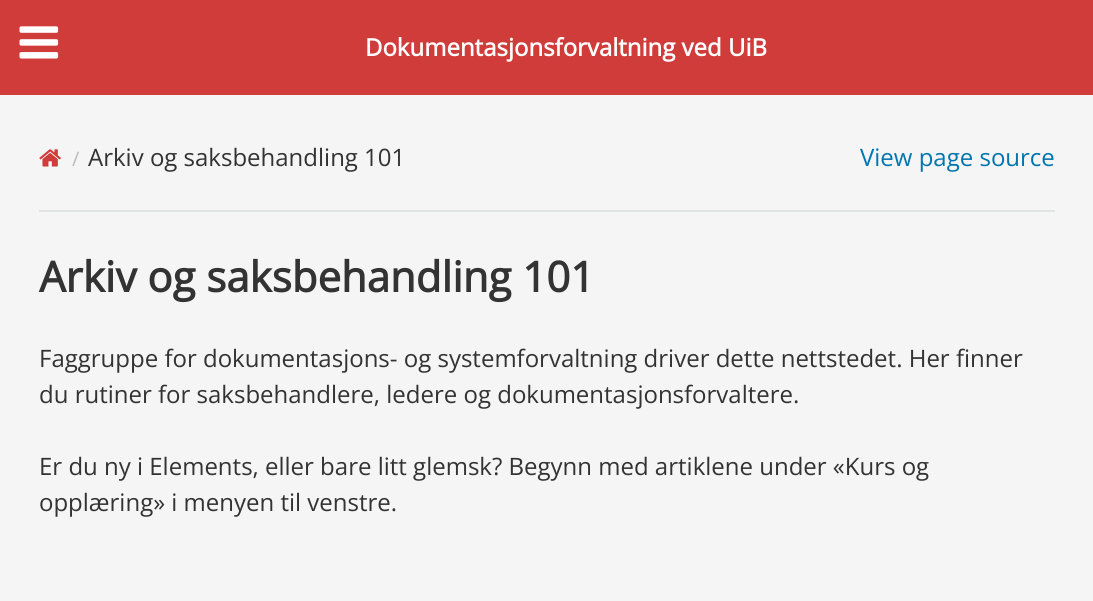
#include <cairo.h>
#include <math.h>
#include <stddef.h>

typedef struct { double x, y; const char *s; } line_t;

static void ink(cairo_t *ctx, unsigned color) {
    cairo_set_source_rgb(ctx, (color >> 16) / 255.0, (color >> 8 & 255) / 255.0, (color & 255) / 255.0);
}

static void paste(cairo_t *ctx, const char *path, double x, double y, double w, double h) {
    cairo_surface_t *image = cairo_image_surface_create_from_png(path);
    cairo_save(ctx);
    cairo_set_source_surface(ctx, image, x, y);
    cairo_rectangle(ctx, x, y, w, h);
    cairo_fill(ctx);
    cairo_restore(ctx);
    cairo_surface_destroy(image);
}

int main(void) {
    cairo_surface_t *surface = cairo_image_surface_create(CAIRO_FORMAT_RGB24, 1093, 601);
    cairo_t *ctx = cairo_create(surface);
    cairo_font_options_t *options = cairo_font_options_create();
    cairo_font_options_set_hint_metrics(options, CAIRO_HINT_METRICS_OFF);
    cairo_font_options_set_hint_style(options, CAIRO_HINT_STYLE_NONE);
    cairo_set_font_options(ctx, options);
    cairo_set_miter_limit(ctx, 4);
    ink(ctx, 0xF5F5F5);
    cairo_paint(ctx);
    ink(ctx, 0xCF3C3A);
    cairo_rectangle(ctx, 0, 0, 1093, 95);
    cairo_fill(ctx);
    paste(ctx, "media/1.png", 19, 26, 40, 33);
    cairo_select_font_face(ctx, "Open Sans", CAIRO_FONT_SLANT_NORMAL, CAIRO_FONT_WEIGHT_BOLD);
    cairo_set_font_size(ctx, 24);
    ink(ctx, 0xFFFFFF);
    cairo_move_to(ctx, 365, 56);
    cairo_show_text(ctx, "Dokumentasjonsforvaltning ved UiB");
    paste(ctx, "media/2.png", 39, 149, 22, 18);
    cairo_select_font_face(ctx, "Open Sans", CAIRO_FONT_SLANT_NORMAL, CAIRO_FONT_WEIGHT_NORMAL);
    cairo_set_font_size(ctx, 20);
    ink(ctx, 0xBBBBBB);
    cairo_move_to(ctx, 72, 166);
    cairo_show_text(ctx, "/");
    cairo_set_font_size(ctx, 24);
    ink(ctx, 0x333333);
    cairo_move_to(ctx, 88, 166);
    cairo_show_text(ctx, "Arkiv og saksbehandling 101");
    ink(ctx, 0x0075AF);
    cairo_move_to(ctx, 860, 166);
    cairo_show_text(ctx, "View page source");
    ink(ctx, 0xE1E4E5);
    cairo_rectangle(ctx, 39, 210, 1016, 2);
    cairo_fill(ctx);
    cairo_select_font_face(ctx, "Open Sans", CAIRO_FONT_SLANT_NORMAL, CAIRO_FONT_WEIGHT_BOLD);
    cairo_set_font_size(ctx, 42);
    ink(ctx, 0x333333);
    cairo_move_to(ctx, 39, 292);
    cairo_show_text(ctx, "Arkiv og saksbehandling 101");
    cairo_select_font_face(ctx, "Open Sans", CAIRO_FONT_SLANT_NORMAL, CAIRO_FONT_WEIGHT_NORMAL);
    cairo_set_font_size(ctx, 24);
    {
        static const line_t items[] = {
            {39, 367, "Faggruppe for dokumentasjons- og systemforvaltning driver dette nettstedet. Her finner"},
            {39, 403, "du rutiner for saksbehandlere, ledere og dokumentasjonsforvaltere."},
            {39, 475, "Er du ny i Elements, eller bare litt glemsk? Begynn med artiklene under «Kurs og"},
            {39, 511, "opplæring» i menyen til venstre."},
        };
        for (size_t i = 0; i < sizeof items / sizeof *items; i++) {
            cairo_move_to(ctx, items[i].x, items[i].y);
            cairo_show_text(ctx, items[i].s);
        }
    }
    cairo_surface_write_to_png(surface, "image.png");
    cairo_font_options_destroy(options);
    cairo_destroy(ctx);
    cairo_surface_destroy(surface);
    return 0;
}
